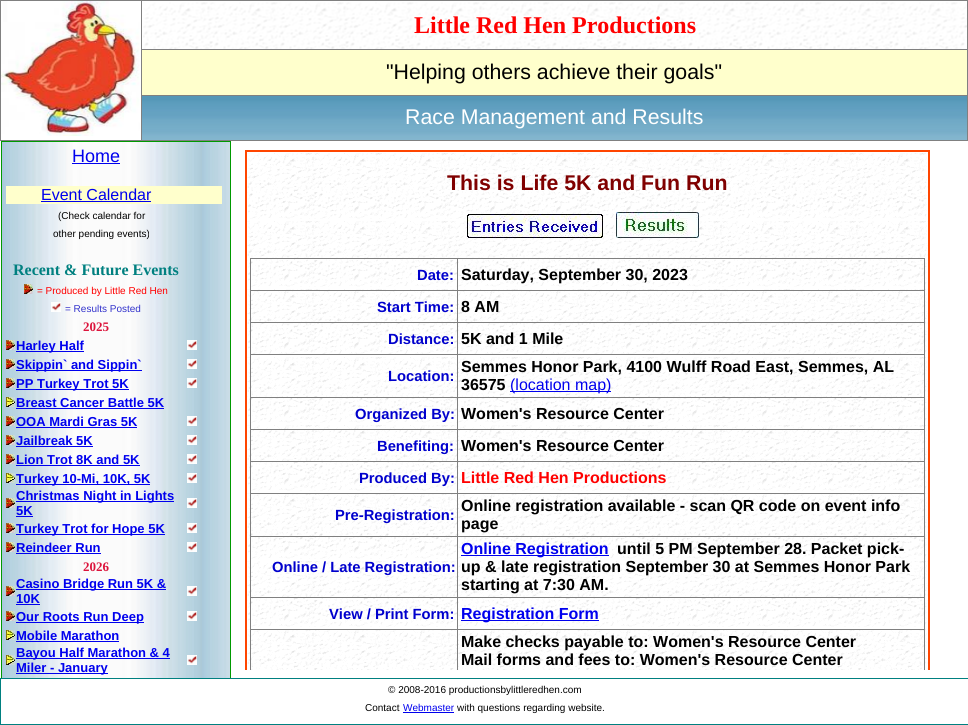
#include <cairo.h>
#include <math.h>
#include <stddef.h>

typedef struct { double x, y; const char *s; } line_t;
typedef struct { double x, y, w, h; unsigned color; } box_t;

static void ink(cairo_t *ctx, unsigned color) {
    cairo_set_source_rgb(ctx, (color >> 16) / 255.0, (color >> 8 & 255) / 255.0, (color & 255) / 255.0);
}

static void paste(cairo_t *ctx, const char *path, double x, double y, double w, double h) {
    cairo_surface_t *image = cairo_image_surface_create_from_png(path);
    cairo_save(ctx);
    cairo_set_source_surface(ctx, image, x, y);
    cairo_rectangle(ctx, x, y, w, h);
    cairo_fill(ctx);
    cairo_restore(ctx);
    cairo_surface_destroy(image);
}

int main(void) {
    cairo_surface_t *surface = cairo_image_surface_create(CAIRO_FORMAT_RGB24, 968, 725);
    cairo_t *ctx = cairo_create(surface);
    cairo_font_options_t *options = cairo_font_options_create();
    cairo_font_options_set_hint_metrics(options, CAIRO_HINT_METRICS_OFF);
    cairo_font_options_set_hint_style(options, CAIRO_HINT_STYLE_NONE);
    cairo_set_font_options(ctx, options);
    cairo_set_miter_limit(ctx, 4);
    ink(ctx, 0xFFFFFF);
    cairo_paint(ctx);
    {
        static const box_t items[] = {
            {0, 0, 968, 1, 0x808080},
            {967, 0, 1, 141, 0x808080},
            {0, 140, 968, 1, 0x808080},
            {0, 0, 1, 141, 0x808080},
        };
        for (size_t i = 0; i < sizeof items / sizeof *items; i++) {
            ink(ctx, items[i].color);
            cairo_rectangle(ctx, items[i].x, items[i].y, items[i].w, items[i].h);
            cairo_fill(ctx);
        }
    }
    paste(ctx, "media/1.png", 1, 1, 139, 135);
    paste(ctx, "media/2.png", 143, 2, 824, 47);
    cairo_select_font_face(ctx, "Liberation Serif", CAIRO_FONT_SLANT_NORMAL, CAIRO_FONT_WEIGHT_BOLD);
    cairo_set_font_size(ctx, 24);
    ink(ctx, 0xFF0000);
    cairo_move_to(ctx, 414, 33);
    cairo_show_text(ctx, "Little Red Hen Productions");
    {
        static const box_t items[] = {
            {142, 50, 825, 45, 0xFFFFCC},
            {141, 49, 827, 1, 0x808080},
            {141, 95, 827, 1, 0x808080},
            {141, 95, 1, 46, 0x808080},
            {141, 0, 1, 96, 0x808080},
        };
        for (size_t i = 0; i < sizeof items / sizeof *items; i++) {
            ink(ctx, items[i].color);
            cairo_rectangle(ctx, items[i].x, items[i].y, items[i].w, items[i].h);
            cairo_fill(ctx);
        }
    }
    cairo_select_font_face(ctx, "Liberation Sans", CAIRO_FONT_SLANT_NORMAL, CAIRO_FONT_WEIGHT_NORMAL);
    cairo_set_font_size(ctx, 21.3);
    ink(ctx, 0x000000);
    cairo_move_to(ctx, 386, 79);
    cairo_show_text(ctx, "\"Helping others achieve their goals\"");
    paste(ctx, "media/3.png", 142, 96, 825, 44);
    ink(ctx, 0xFFFFFF);
    cairo_move_to(ctx, 405, 124);
    cairo_show_text(ctx, "Race Management and Results");
    paste(ctx, "media/4.png", 2, 142, 228, 536);
    cairo_save(ctx);
    cairo_rectangle(ctx, 1, 141, 230, 538);
    cairo_clip(ctx);
    cairo_rectangle(ctx, 1.5, 141.5, 229, 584);
    ink(ctx, 0x009900);
    cairo_set_line_width(ctx, 1);
    cairo_stroke(ctx);
    cairo_restore(ctx);
    cairo_set_font_size(ctx, 18);
    ink(ctx, 0x0000EE);
    cairo_move_to(ctx, 72, 162);
    cairo_show_text(ctx, "Home");
    cairo_rectangle(ctx, 72, 163, 48, 1);
    cairo_fill(ctx);
    ink(ctx, 0xFFFFCC);
    cairo_rectangle(ctx, 6, 186, 216, 18);
    cairo_fill(ctx);
    cairo_set_font_size(ctx, 16);
    ink(ctx, 0x0000EE);
    cairo_move_to(ctx, 41, 200);
    cairo_show_text(ctx, "Event Calendar");
    cairo_rectangle(ctx, 41, 201, 110, 1);
    cairo_fill(ctx);
    cairo_set_font_size(ctx, 10);
    ink(ctx, 0x000000);
    cairo_move_to(ctx, 58, 219);
    cairo_show_text(ctx, "(Check calendar for");
    cairo_move_to(ctx, 53, 237);
    cairo_show_text(ctx, "other pending events)");
    cairo_select_font_face(ctx, "Liberation Serif", CAIRO_FONT_SLANT_NORMAL, CAIRO_FONT_WEIGHT_BOLD);
    cairo_set_font_size(ctx, 16);
    ink(ctx, 0x008080);
    cairo_move_to(ctx, 13, 275);
    cairo_show_text(ctx, "Recent & Future Events");
    paste(ctx, "media/5.png", 24, 284, 9, 10);
    cairo_select_font_face(ctx, "Liberation Sans", CAIRO_FONT_SLANT_NORMAL, CAIRO_FONT_WEIGHT_NORMAL);
    cairo_set_font_size(ctx, 10);
    ink(ctx, 0xFF0000);
    cairo_move_to(ctx, 37, 294);
    cairo_show_text(ctx, "= Produced by Little Red Hen");
    paste(ctx, "media/6.png", 51, 302, 10, 10);
    ink(ctx, 0x3333CC);
    cairo_move_to(ctx, 65, 312);
    cairo_show_text(ctx, "= Results Posted");
    cairo_select_font_face(ctx, "Liberation Serif", CAIRO_FONT_SLANT_NORMAL, CAIRO_FONT_WEIGHT_BOLD);
    cairo_set_font_size(ctx, 13);
    ink(ctx, 0xDC143C);
    cairo_move_to(ctx, 83, 331);
    cairo_show_text(ctx, "2025");
    paste(ctx, "media/5.png", 6, 340, 9, 10);
    ink(ctx, 0x0000EE);
    cairo_rectangle(ctx, 16, 351, 68, 1);
    cairo_fill(ctx);
    cairo_select_font_face(ctx, "Liberation Sans", CAIRO_FONT_SLANT_NORMAL, CAIRO_FONT_WEIGHT_BOLD);
    cairo_move_to(ctx, 16, 350);
    cairo_show_text(ctx, "Harley Half");
    paste(ctx, "media/7.png", 187, 340, 10, 10);
    paste(ctx, "media/5.png", 6, 359, 9, 10);
    cairo_rectangle(ctx, 16, 370, 126, 1);
    cairo_fill(ctx);
    cairo_move_to(ctx, 16, 369);
    cairo_show_text(ctx, "Skippin` and Sippin`");
    paste(ctx, "media/7.png", 187, 359, 10, 10);
    paste(ctx, "media/5.png", 6, 378, 9, 10);
    cairo_rectangle(ctx, 16, 389, 113, 1);
    cairo_fill(ctx);
    cairo_move_to(ctx, 16, 388);
    cairo_show_text(ctx, "PP Turkey Trot 5K");
    paste(ctx, "media/7.png", 187, 378, 10, 10);
    paste(ctx, "media/8.png", 6, 397, 9, 10);
    cairo_move_to(ctx, 16, 407);
    cairo_show_text(ctx, "Breast Cancer Battle 5K");
    cairo_rectangle(ctx, 16, 408, 148, 1);
    cairo_fill(ctx);
    paste(ctx, "media/5.png", 6, 416, 9, 10);
    cairo_move_to(ctx, 16, 426);
    cairo_show_text(ctx, "OOA Mardi Gras 5K");
    cairo_rectangle(ctx, 16, 427, 121, 1);
    cairo_fill(ctx);
    paste(ctx, "media/7.png", 187, 416, 10, 10);
    paste(ctx, "media/5.png", 6, 435, 9, 10);
    cairo_move_to(ctx, 16, 445);
    cairo_show_text(ctx, "Jailbreak 5K");
    cairo_rectangle(ctx, 16, 446, 77, 1);
    cairo_fill(ctx);
    paste(ctx, "media/7.png", 187, 435, 10, 10);
    paste(ctx, "media/5.png", 6, 454, 9, 10);
    cairo_move_to(ctx, 16, 464);
    cairo_show_text(ctx, "Lion Trot 8K and 5K");
    cairo_rectangle(ctx, 16, 465, 124, 1);
    cairo_fill(ctx);
    paste(ctx, "media/7.png", 187, 454, 10, 10);
    paste(ctx, "media/8.png", 6, 473, 9, 10);
    cairo_rectangle(ctx, 16, 484, 134, 1);
    cairo_fill(ctx);
    cairo_move_to(ctx, 16, 483);
    cairo_show_text(ctx, "Turkey 10-Mi, 10K, 5K");
    paste(ctx, "media/7.png", 187, 473, 10, 10);
    paste(ctx, "media/5.png", 6, 498, 9, 10);
    cairo_rectangle(ctx, 16, 501, 158, 1);
    cairo_fill(ctx);
    cairo_move_to(ctx, 16, 500);
    cairo_show_text(ctx, "Christmas Night in Lights");
    cairo_move_to(ctx, 16, 515);
    cairo_show_text(ctx, "5K");
    cairo_rectangle(ctx, 16, 516, 17, 1);
    cairo_fill(ctx);
    paste(ctx, "media/7.png", 187, 498, 10, 10);
    paste(ctx, "media/5.png", 6, 523, 9, 10);
    cairo_rectangle(ctx, 16, 534, 149, 1);
    cairo_fill(ctx);
    cairo_move_to(ctx, 16, 533);
    cairo_show_text(ctx, "Turkey Trot for Hope 5K");
    paste(ctx, "media/7.png", 187, 523, 10, 10);
    paste(ctx, "media/5.png", 6, 542, 9, 10);
    cairo_move_to(ctx, 16, 552);
    cairo_show_text(ctx, "Reindeer Run");
    cairo_rectangle(ctx, 16, 553, 85, 1);
    cairo_fill(ctx);
    paste(ctx, "media/7.png", 187, 542, 10, 10);
    cairo_select_font_face(ctx, "Liberation Serif", CAIRO_FONT_SLANT_NORMAL, CAIRO_FONT_WEIGHT_BOLD);
    ink(ctx, 0xDC143C);
    cairo_move_to(ctx, 83, 571);
    cairo_show_text(ctx, "2026");
    paste(ctx, "media/5.png", 6, 586, 9, 10);
    ink(ctx, 0x0000EE);
    cairo_rectangle(ctx, 16, 589, 150, 1);
    cairo_fill(ctx);
    cairo_select_font_face(ctx, "Liberation Sans", CAIRO_FONT_SLANT_NORMAL, CAIRO_FONT_WEIGHT_BOLD);
    cairo_move_to(ctx, 16, 588);
    cairo_show_text(ctx, "Casino Bridge Run 5K &");
    cairo_move_to(ctx, 16, 603);
    cairo_show_text(ctx, "10K");
    cairo_rectangle(ctx, 16, 604, 24, 1);
    cairo_fill(ctx);
    paste(ctx, "media/7.png", 187, 586, 10, 10);
    paste(ctx, "media/5.png", 6, 611, 9, 10);
    cairo_rectangle(ctx, 16, 622, 128, 1);
    cairo_fill(ctx);
    cairo_move_to(ctx, 16, 621);
    cairo_show_text(ctx, "Our Roots Run Deep");
    paste(ctx, "media/7.png", 187, 611, 10, 10);
    paste(ctx, "media/8.png", 6, 630, 9, 10);
    cairo_move_to(ctx, 16, 640);
    cairo_show_text(ctx, "Mobile Marathon");
    cairo_rectangle(ctx, 16, 641, 103, 1);
    cairo_fill(ctx);
    paste(ctx, "media/8.png", 6, 655, 9, 10);
    cairo_rectangle(ctx, 16, 658, 154, 1);
    cairo_fill(ctx);
    cairo_move_to(ctx, 16, 657);
    cairo_show_text(ctx, "Bayou Half Marathon & 4");
    cairo_rectangle(ctx, 16, 673, 92, 1);
    cairo_fill(ctx);
    cairo_move_to(ctx, 16, 672);
    cairo_show_text(ctx, "Miler - January");
    paste(ctx, "media/7.png", 187, 655, 10, 10);
    paste(ctx, "media/9.png", 247, 153, 681, 517);
    cairo_save(ctx);
    cairo_rectangle(ctx, 245, 150, 713, 520);
    cairo_clip(ctx);
    cairo_rectangle(ctx, 246, 151, 683, 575);
    ink(ctx, 0xFF4500);
    cairo_stroke(ctx);
    cairo_restore(ctx);
    cairo_set_font_size(ctx, 21.3);
    ink(ctx, 0x800000);
    cairo_move_to(ctx, 447, 190);
    cairo_show_text(ctx, "This is Life 5K and Fun Run");
    paste(ctx, "media/10.png", 467, 214, 136, 24);
    paste(ctx, "media/11.png", 616, 212, 83, 26);
    {
        static const box_t items[] = {
            {250, 258, 675, 1, 0x808080},
            {924, 258, 1, 412, 0x808080},
            {250, 258, 1, 412, 0x808080},
        };
        for (size_t i = 0; i < sizeof items / sizeof *items; i++) {
            ink(ctx, items[i].color);
            cairo_rectangle(ctx, items[i].x, items[i].y, items[i].w, items[i].h);
            cairo_fill(ctx);
        }
    }
    cairo_set_font_size(ctx, 14.75);
    ink(ctx, 0x0000CD);
    cairo_move_to(ctx, 417, 280);
    cairo_show_text(ctx, "Date:");
    {
        static const box_t items[] = {
            {457, 290, 468, 1, 0x808080},
            {457, 322, 468, 1, 0x808080},
            {457, 354, 468, 1, 0x808080},
            {457, 397, 468, 1, 0x808080},
            {457, 429, 468, 1, 0x808080},
            {457, 461, 468, 1, 0x808080},
            {457, 493, 468, 1, 0x808080},
            {457, 536, 468, 1, 0x808080},
            {457, 597, 468, 1, 0x808080},
            {457, 629, 468, 1, 0x808080},
            {457, 629, 1, 41, 0x808080},
            {250, 629, 208, 1, 0x808080},
            {457, 597, 1, 33, 0x808080},
            {250, 597, 208, 1, 0x808080},
            {457, 536, 1, 62, 0x808080},
            {250, 536, 208, 1, 0x808080},
            {457, 493, 1, 44, 0x808080},
            {250, 493, 208, 1, 0x808080},
            {457, 461, 1, 33, 0x808080},
            {250, 461, 208, 1, 0x808080},
            {457, 429, 1, 33, 0x808080},
            {250, 429, 208, 1, 0x808080},
            {457, 397, 1, 33, 0x808080},
            {250, 397, 208, 1, 0x808080},
            {457, 354, 1, 44, 0x808080},
            {250, 354, 208, 1, 0x808080},
            {457, 322, 1, 33, 0x808080},
            {250, 322, 208, 1, 0x808080},
            {457, 290, 1, 33, 0x808080},
            {250, 290, 208, 1, 0x808080},
            {457, 258, 1, 33, 0x808080},
        };
        for (size_t i = 0; i < sizeof items / sizeof *items; i++) {
            ink(ctx, items[i].color);
            cairo_rectangle(ctx, items[i].x, items[i].y, items[i].w, items[i].h);
            cairo_fill(ctx);
        }
    }
    cairo_set_font_size(ctx, 16);
    ink(ctx, 0x000000);
    cairo_move_to(ctx, 461, 280);
    cairo_show_text(ctx, "Saturday, September 30, 2023");
    cairo_set_font_size(ctx, 14.75);
    ink(ctx, 0x0000CD);
    cairo_move_to(ctx, 377, 312);
    cairo_show_text(ctx, "Start Time:");
    cairo_set_font_size(ctx, 16);
    ink(ctx, 0x000000);
    cairo_move_to(ctx, 461, 312);
    cairo_show_text(ctx, "8 AM");
    cairo_set_font_size(ctx, 14.75);
    ink(ctx, 0x0000CD);
    cairo_move_to(ctx, 388, 344);
    cairo_show_text(ctx, "Distance:");
    cairo_set_font_size(ctx, 16);
    ink(ctx, 0x000000);
    cairo_move_to(ctx, 461, 344);
    cairo_show_text(ctx, "5K and 1 Mile");
    cairo_set_font_size(ctx, 14.75);
    ink(ctx, 0x0000CD);
    cairo_move_to(ctx, 388, 381);
    cairo_show_text(ctx, "Location:");
    cairo_set_font_size(ctx, 16);
    ink(ctx, 0x000000);
    cairo_move_to(ctx, 461, 372);
    cairo_show_text(ctx, "Semmes Honor Park, 4100 Wulff Road East, Semmes, AL");
    cairo_move_to(ctx, 461, 390);
    cairo_show_text(ctx, "36575");
    ink(ctx, 0x0000EE);
    cairo_rectangle(ctx, 510, 391, 101, 1);
    cairo_fill(ctx);
    cairo_select_font_face(ctx, "Liberation Sans", CAIRO_FONT_SLANT_NORMAL, CAIRO_FONT_WEIGHT_NORMAL);
    cairo_move_to(ctx, 510, 390);
    cairo_show_text(ctx, "(location map)");
    cairo_select_font_face(ctx, "Liberation Sans", CAIRO_FONT_SLANT_NORMAL, CAIRO_FONT_WEIGHT_BOLD);
    cairo_set_font_size(ctx, 14.75);
    ink(ctx, 0x0000CD);
    cairo_move_to(ctx, 355, 419);
    cairo_show_text(ctx, "Organized By:");
    cairo_set_font_size(ctx, 16);
    ink(ctx, 0x000000);
    cairo_move_to(ctx, 461, 419);
    cairo_show_text(ctx, "Women's Resource Center");
    cairo_set_font_size(ctx, 14.75);
    ink(ctx, 0x0000CD);
    cairo_move_to(ctx, 377, 451);
    cairo_show_text(ctx, "Benefiting:");
    cairo_set_font_size(ctx, 16);
    ink(ctx, 0x000000);
    cairo_move_to(ctx, 461, 451);
    cairo_show_text(ctx, "Women's Resource Center");
    cairo_set_font_size(ctx, 14.75);
    ink(ctx, 0x0000CD);
    cairo_move_to(ctx, 359, 483);
    cairo_show_text(ctx, "Produced By:");
    cairo_set_font_size(ctx, 16);
    ink(ctx, 0xFF0000);
    cairo_move_to(ctx, 461, 483);
    cairo_show_text(ctx, "Little Red Hen Productions");
    cairo_set_font_size(ctx, 14.75);
    ink(ctx, 0x0000CD);
    cairo_move_to(ctx, 335, 520);
    cairo_show_text(ctx, "Pre-Registration:");
    cairo_set_font_size(ctx, 16);
    ink(ctx, 0x000000);
    cairo_move_to(ctx, 461, 511);
    cairo_show_text(ctx, "Online registration available - scan QR code on event info");
    cairo_move_to(ctx, 461, 529);
    cairo_show_text(ctx, "page");
    cairo_set_font_size(ctx, 14.75);
    ink(ctx, 0x0000CD);
    cairo_move_to(ctx, 272, 572);
    cairo_show_text(ctx, "Online / Late Registration:");
    ink(ctx, 0x0000EE);
    cairo_rectangle(ctx, 461, 555, 148, 1);
    cairo_fill(ctx);
    cairo_set_font_size(ctx, 16);
    cairo_move_to(ctx, 461, 554);
    cairo_show_text(ctx, "Online Registration");
    ink(ctx, 0x000000);
    {
        static const line_t items[] = {
            {617, 554, "until 5 PM September 28. Packet pick-"},
            {461, 572, "up & late registration September 30 at Semmes Honor Park"},
            {461, 590, "starting at 7:30 AM."},
        };
        for (size_t i = 0; i < sizeof items / sizeof *items; i++) {
            cairo_move_to(ctx, items[i].x, items[i].y);
            cairo_show_text(ctx, items[i].s);
        }
    }
    cairo_set_font_size(ctx, 14.75);
    ink(ctx, 0x0000CD);
    cairo_move_to(ctx, 329, 619);
    cairo_show_text(ctx, "View / Print Form:");
    ink(ctx, 0x0000EE);
    cairo_rectangle(ctx, 461, 620, 138, 1);
    cairo_fill(ctx);
    cairo_set_font_size(ctx, 16);
    cairo_move_to(ctx, 461, 619);
    cairo_show_text(ctx, "Registration Form");
    ink(ctx, 0x000000);
    cairo_move_to(ctx, 461, 647);
    cairo_show_text(ctx, "Make checks payable to: Women's Resource Center");
    cairo_move_to(ctx, 461, 665);
    cairo_show_text(ctx, "Mail forms and fees to: Women's Resource Center");
    cairo_rectangle(ctx, 0.5, 678.5, 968, 46);
    ink(ctx, 0x008080);
    cairo_set_line_width(ctx, 1);
    cairo_stroke(ctx);
    cairo_select_font_face(ctx, "Liberation Sans", CAIRO_FONT_SLANT_NORMAL, CAIRO_FONT_WEIGHT_NORMAL);
    cairo_set_font_size(ctx, 10);
    ink(ctx, 0x000000);
    cairo_move_to(ctx, 388, 693);
    cairo_show_text(ctx, "© 2008-2016 productionsbylittleredhen.com");
    cairo_move_to(ctx, 365, 711);
    cairo_show_text(ctx, "Contact");
    ink(ctx, 0x0000EE);
    cairo_move_to(ctx, 403, 711);
    cairo_show_text(ctx, "Webmaster");
    cairo_rectangle(ctx, 403, 712, 51, 1);
    cairo_fill(ctx);
    ink(ctx, 0x000000);
    cairo_move_to(ctx, 457, 711);
    cairo_show_text(ctx, "with questions regarding website.");
    cairo_surface_write_to_png(surface, "image.png");
    cairo_font_options_destroy(options);
    cairo_destroy(ctx);
    cairo_surface_destroy(surface);
    return 0;
}
